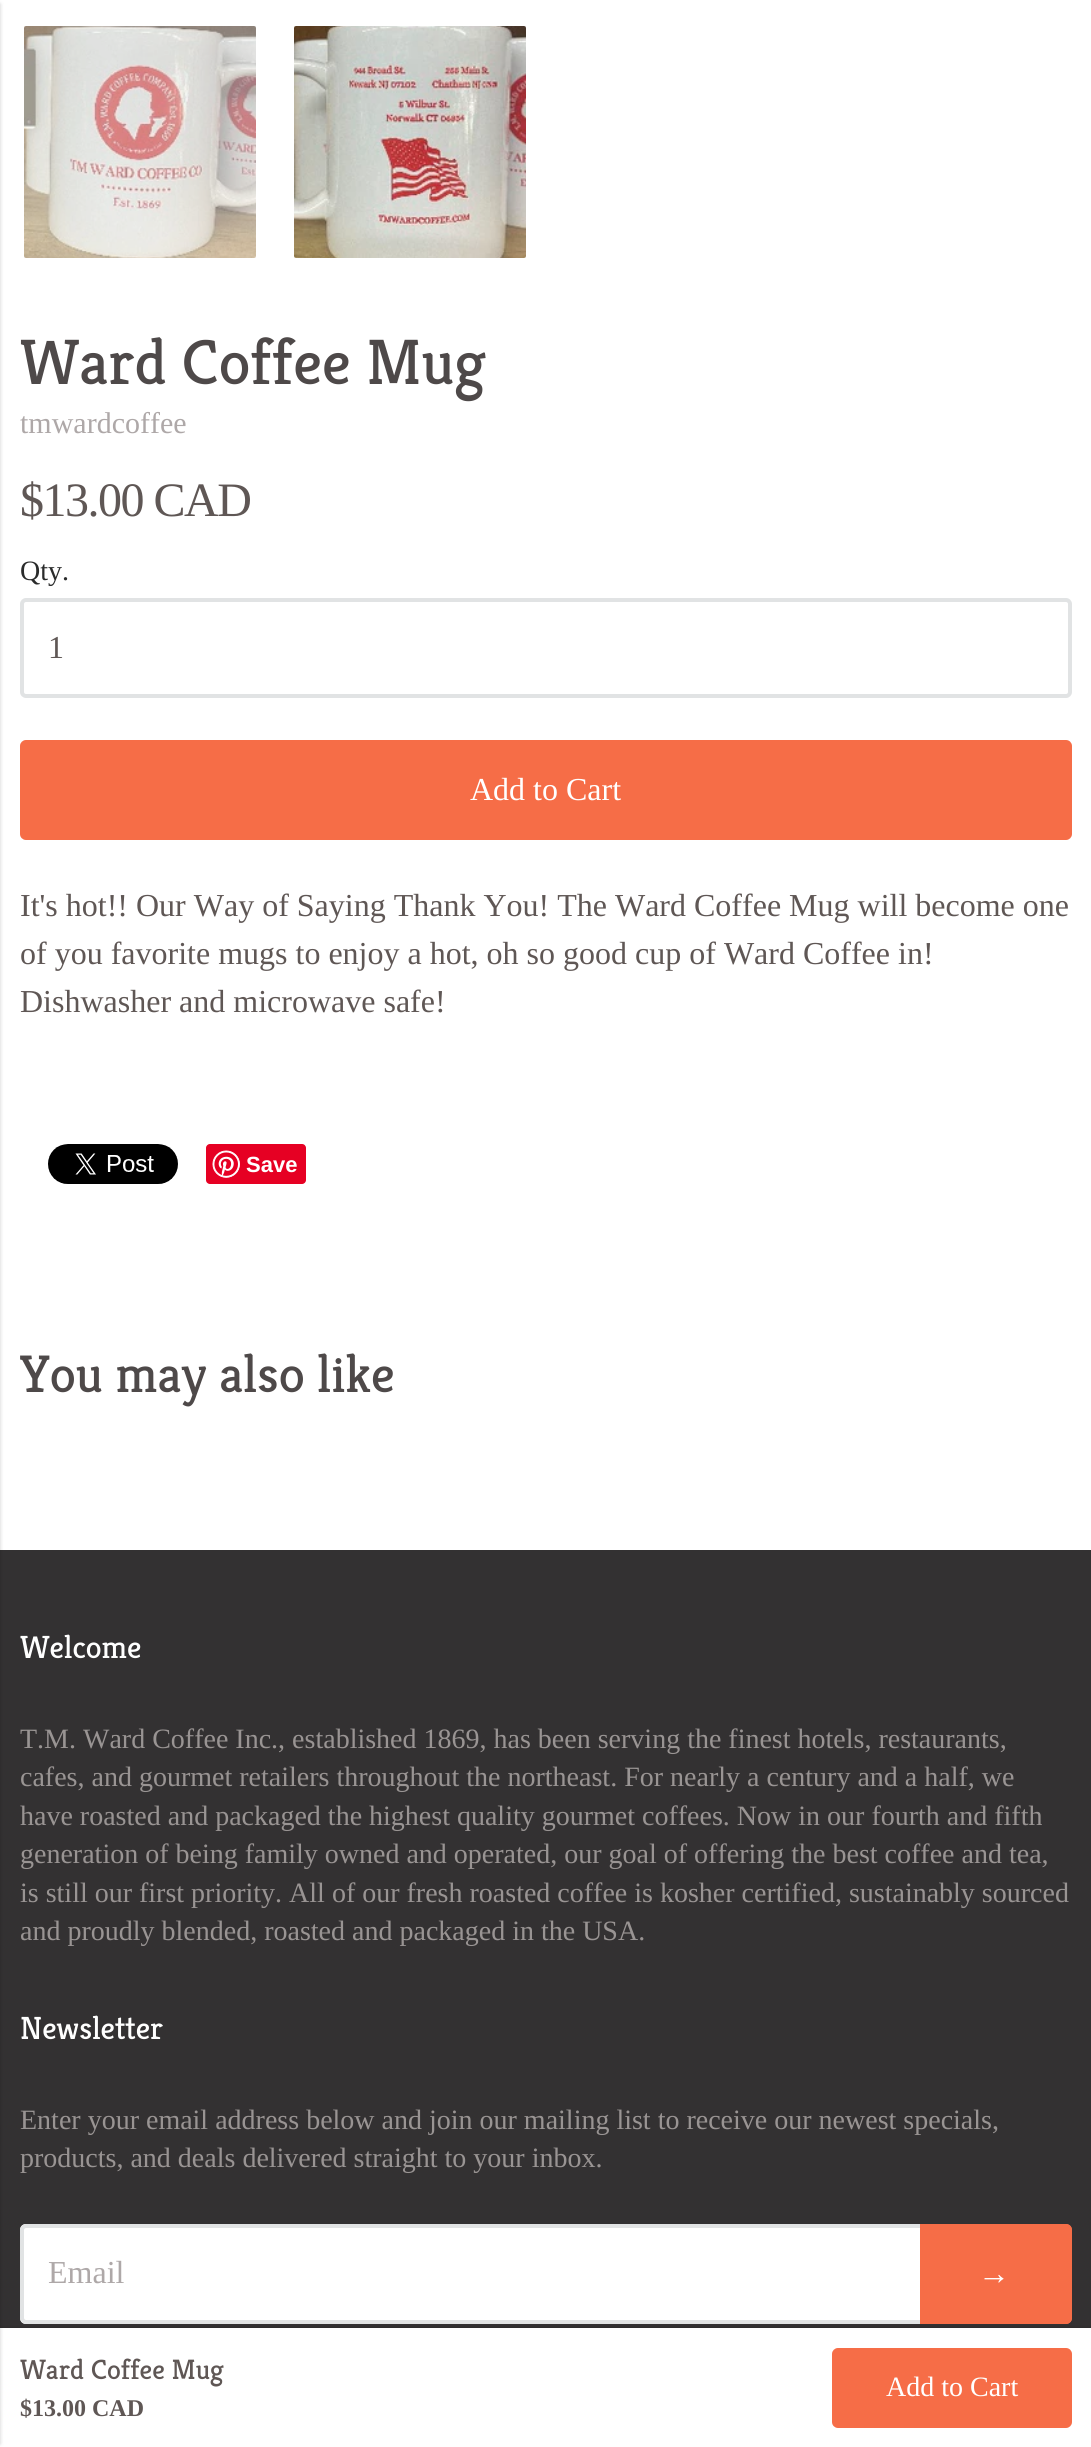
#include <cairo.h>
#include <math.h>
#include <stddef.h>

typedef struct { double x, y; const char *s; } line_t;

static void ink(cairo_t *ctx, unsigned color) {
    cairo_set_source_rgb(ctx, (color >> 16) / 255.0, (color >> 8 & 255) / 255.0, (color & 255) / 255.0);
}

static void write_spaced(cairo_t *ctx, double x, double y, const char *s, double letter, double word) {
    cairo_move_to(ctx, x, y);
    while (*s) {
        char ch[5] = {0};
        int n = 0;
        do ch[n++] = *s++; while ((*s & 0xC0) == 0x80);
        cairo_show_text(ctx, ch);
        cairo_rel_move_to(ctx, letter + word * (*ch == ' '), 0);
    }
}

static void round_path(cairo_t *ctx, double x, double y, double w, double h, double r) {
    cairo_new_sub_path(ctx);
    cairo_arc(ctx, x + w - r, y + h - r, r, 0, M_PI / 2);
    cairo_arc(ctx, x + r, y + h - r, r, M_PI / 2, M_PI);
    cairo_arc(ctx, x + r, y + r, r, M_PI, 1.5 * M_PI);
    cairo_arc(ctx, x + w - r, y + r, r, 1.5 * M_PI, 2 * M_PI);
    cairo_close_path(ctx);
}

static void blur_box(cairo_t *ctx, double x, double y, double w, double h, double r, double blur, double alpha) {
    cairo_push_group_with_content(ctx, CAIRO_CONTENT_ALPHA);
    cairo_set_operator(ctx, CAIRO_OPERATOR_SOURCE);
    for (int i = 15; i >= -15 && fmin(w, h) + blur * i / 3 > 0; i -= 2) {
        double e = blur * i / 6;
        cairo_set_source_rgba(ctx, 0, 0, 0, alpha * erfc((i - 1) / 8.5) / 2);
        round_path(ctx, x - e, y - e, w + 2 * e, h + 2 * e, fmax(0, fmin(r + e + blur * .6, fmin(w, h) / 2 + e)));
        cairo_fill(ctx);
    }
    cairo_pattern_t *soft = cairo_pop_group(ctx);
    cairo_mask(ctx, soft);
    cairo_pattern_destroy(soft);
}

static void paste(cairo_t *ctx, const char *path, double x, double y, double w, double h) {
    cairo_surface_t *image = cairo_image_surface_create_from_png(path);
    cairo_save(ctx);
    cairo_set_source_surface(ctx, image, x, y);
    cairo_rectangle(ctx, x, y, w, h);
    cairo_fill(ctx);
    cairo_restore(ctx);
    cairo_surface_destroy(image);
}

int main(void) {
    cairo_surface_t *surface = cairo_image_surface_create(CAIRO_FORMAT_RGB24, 1091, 2447);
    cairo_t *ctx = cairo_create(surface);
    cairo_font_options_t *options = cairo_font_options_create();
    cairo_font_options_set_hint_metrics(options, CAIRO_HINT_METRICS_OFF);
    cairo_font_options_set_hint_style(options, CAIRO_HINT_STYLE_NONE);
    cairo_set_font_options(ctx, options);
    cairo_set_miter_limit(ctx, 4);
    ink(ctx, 0xFFFFFF);
    cairo_paint(ctx);
    ink(ctx, 0x333132);
    cairo_rectangle(ctx, 0, 1550, 1091, 778);
    cairo_fill(ctx);
    ink(ctx, 0xFFFFFF);
    cairo_new_path(ctx);
    cairo_move_to(ctx, 26, 2224);
    cairo_line_to(ctx, 920, 2224);
    cairo_line_to(ctx, 920, 2324);
    cairo_line_to(ctx, 26, 2324);
    cairo_curve_to(ctx, 22.5, 2324, 20, 2321.5, 20, 2318);
    cairo_line_to(ctx, 20, 2230);
    cairo_curve_to(ctx, 20, 2226.5, 22.5, 2224, 26, 2224);
    cairo_close_path(ctx);
    cairo_fill(ctx);
    ink(ctx, 0xE1E3E4);
    cairo_set_fill_rule(ctx, CAIRO_FILL_RULE_EVEN_ODD);
    cairo_new_path(ctx);
    cairo_move_to(ctx, 26, 2224);
    cairo_line_to(ctx, 920, 2224);
    cairo_line_to(ctx, 920, 2324);
    cairo_line_to(ctx, 26, 2324);
    cairo_curve_to(ctx, 23, 2324, 20, 2321, 20, 2318);
    cairo_line_to(ctx, 20, 2230);
    cairo_curve_to(ctx, 20, 2227, 23, 2224, 26, 2224);
    cairo_close_path(ctx);
    cairo_move_to(ctx, 26, 2228);
    cairo_line_to(ctx, 920, 2228);
    cairo_line_to(ctx, 920, 2320);
    cairo_line_to(ctx, 26, 2320);
    cairo_curve_to(ctx, 25, 2320, 24, 2319, 24, 2318);
    cairo_line_to(ctx, 24, 2230);
    cairo_curve_to(ctx, 24, 2229, 25, 2228, 26, 2228);
    cairo_close_path(ctx);
    cairo_fill(ctx);
    ink(ctx, 0xF66D47);
    cairo_new_path(ctx);
    cairo_move_to(ctx, 920, 2224);
    cairo_line_to(ctx, 1066, 2224);
    cairo_curve_to(ctx, 1069.5, 2224, 1072, 2226.5, 1072, 2230);
    cairo_line_to(ctx, 1072, 2318);
    cairo_curve_to(ctx, 1072, 2321.5, 1069.5, 2324, 1066, 2324);
    cairo_line_to(ctx, 920, 2324);
    cairo_close_path(ctx);
    cairo_fill(ctx);
    cairo_new_path(ctx);
    cairo_move_to(ctx, 920, 2224);
    cairo_line_to(ctx, 1066, 2224);
    cairo_curve_to(ctx, 1069, 2224, 1072, 2227, 1072, 2230);
    cairo_line_to(ctx, 1072, 2318);
    cairo_curve_to(ctx, 1072, 2321, 1069, 2324, 1066, 2324);
    cairo_line_to(ctx, 920, 2324);
    cairo_close_path(ctx);
    cairo_move_to(ctx, 920, 2228);
    cairo_line_to(ctx, 1066, 2228);
    cairo_curve_to(ctx, 1067, 2228, 1068, 2229, 1068, 2230);
    cairo_line_to(ctx, 1068, 2318);
    cairo_curve_to(ctx, 1068, 2319, 1067, 2320, 1066, 2320);
    cairo_line_to(ctx, 920, 2320);
    cairo_close_path(ctx);
    cairo_fill(ctx);
    ink(ctx, 0x000000);
    blur_box(ctx, 0, 2328, 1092, 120, 0, 2, 0.2);
    ink(ctx, 0xFFFFFF);
    cairo_rectangle(ctx, 0, 2328, 1091, 119);
    cairo_fill(ctx);
    ink(ctx, 0x000000);
    blur_box(ctx, -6, 4, 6, 2440, 0, 2, 0.2);
    ink(ctx, 0xF7F8F8);
    round_path(ctx, 22, 24, 236, 236, 4);
    cairo_fill_preserve(ctx);
    ink(ctx, 0xFFFFFF);
    cairo_set_line_width(ctx, 4);
    cairo_stroke(ctx);
    paste(ctx, "media/1.png", 24, 26, 232, 232);
    paste(ctx, "media/2.png", 294, 26, 232, 232);
    cairo_select_font_face(ctx, "Kreon", CAIRO_FONT_SLANT_NORMAL, CAIRO_FONT_WEIGHT_NORMAL);
    cairo_set_font_size(ctx, 64);
    ink(ctx, 0x4E4949);
    cairo_move_to(ctx, 20, 384);
    cairo_show_text(ctx, "Ward Coffee Mug");
    cairo_select_font_face(ctx, "Liberation Serif", CAIRO_FONT_SLANT_NORMAL, CAIRO_FONT_WEIGHT_NORMAL);
    cairo_set_font_size(ctx, 30);
    ink(ctx, 0xAEA8A8);
    cairo_move_to(ctx, 20, 433);
    cairo_show_text(ctx, "tmwardcoffee");
    cairo_set_font_size(ctx, 48);
    ink(ctx, 0x5F5755);
    write_spaced(ctx, 20, 516, "$13.00 CAD", -1.5, 0);
    cairo_set_font_size(ctx, 28);
    ink(ctx, 0x2A2B2B);
    cairo_move_to(ctx, 20, 580);
    cairo_show_text(ctx, "Qty.");
    round_path(ctx, 22, 600, 1048, 96, 4);
    ink(ctx, 0xE1E3E4);
    cairo_stroke(ctx);
    cairo_set_font_size(ctx, 32);
    ink(ctx, 0x5F5755);
    cairo_move_to(ctx, 48, 658);
    cairo_show_text(ctx, "1");
    ink(ctx, 0xF66D47);
    round_path(ctx, 22, 742, 1048, 96, 4);
    cairo_fill_preserve(ctx);
    cairo_stroke(ctx);
    ink(ctx, 0xFFFFFF);
    cairo_move_to(ctx, 470, 800);
    cairo_show_text(ctx, "Add to Cart");
    ink(ctx, 0x5F5755);
    {
        static const line_t items[] = {
            {20, 916, "It's hot!! Our Way of Saying Thank You! The Ward Coffee Mug will become one"},
            {20, 964, "of you favorite mugs to enjoy a hot, oh so good cup of Ward Coffee in!"},
            {20, 1012, "Dishwasher and microwave safe!"},
        };
        for (size_t i = 0; i < sizeof items / sizeof *items; i++) {
            cairo_move_to(ctx, items[i].x, items[i].y);
            cairo_show_text(ctx, items[i].s);
        }
    }
    paste(ctx, "media/3.png", 48, 1144, 130, 40);
    ink(ctx, 0xE60023);
    round_path(ctx, 206, 1144, 100, 40, 4);
    cairo_fill(ctx);
    paste(ctx, "media/4.png", 212, 1150, 28, 28);
    cairo_select_font_face(ctx, "Liberation Sans", CAIRO_FONT_SLANT_NORMAL, CAIRO_FONT_WEIGHT_BOLD);
    cairo_set_font_size(ctx, 22);
    ink(ctx, 0xFFFFFF);
    cairo_move_to(ctx, 246, 1172);
    cairo_show_text(ctx, "Save");
    cairo_select_font_face(ctx, "Kreon", CAIRO_FONT_SLANT_NORMAL, CAIRO_FONT_WEIGHT_NORMAL);
    cairo_set_font_size(ctx, 28);
    ink(ctx, 0x5F5755);
    cairo_move_to(ctx, 20, 2379);
    cairo_show_text(ctx, "Ward Coffee Mug");
    cairo_select_font_face(ctx, "Liberation Serif", CAIRO_FONT_SLANT_NORMAL, CAIRO_FONT_WEIGHT_BOLD);
    cairo_set_font_size(ctx, 24);
    cairo_move_to(ctx, 20, 2416);
    cairo_show_text(ctx, "$13.00 CAD");
    ink(ctx, 0xF66D47);
    round_path(ctx, 834, 2350, 236, 76, 4);
    cairo_fill_preserve(ctx);
    cairo_stroke(ctx);
    cairo_select_font_face(ctx, "Liberation Serif", CAIRO_FONT_SLANT_NORMAL, CAIRO_FONT_WEIGHT_NORMAL);
    cairo_set_font_size(ctx, 28);
    ink(ctx, 0xFFFFFF);
    cairo_move_to(ctx, 886, 2396);
    cairo_show_text(ctx, "Add to Cart");
    cairo_select_font_face(ctx, "Kreon", CAIRO_FONT_SLANT_NORMAL, CAIRO_FONT_WEIGHT_NORMAL);
    cairo_set_font_size(ctx, 52.75);
    ink(ctx, 0x4E4949);
    cairo_move_to(ctx, 20, 1392);
    cairo_show_text(ctx, "You may also like");
    cairo_set_font_size(ctx, 32);
    ink(ctx, 0xFFFFFF);
    cairo_move_to(ctx, 20, 1658);
    cairo_show_text(ctx, "Welcome");
    cairo_select_font_face(ctx, "Liberation Serif", CAIRO_FONT_SLANT_NORMAL, CAIRO_FONT_WEIGHT_NORMAL);
    cairo_set_font_size(ctx, 28);
    ink(ctx, 0x999493);
    {
        static const line_t items[] = {
            {20, 1748, "T.M. Ward Coffee Inc., established 1869, has been serving the finest hotels, restaurants,"},
            {20, 1786, "cafes, and gourmet retailers throughout the northeast. For nearly a century and a half, we"},
            {20, 1825, "have roasted and packaged the highest quality gourmet coffees. Now in our fourth and fifth"},
            {20, 1863, "generation of being family owned and operated, our goal of offering the best coffee and tea,"},
            {20, 1902, "is still our first priority. All of our fresh roasted coffee is kosher certified, sustainably sourced"},
            {20, 1940, "and proudly blended, roasted and packaged in the USA."},
        };
        for (size_t i = 0; i < sizeof items / sizeof *items; i++) {
            cairo_move_to(ctx, items[i].x, items[i].y);
            cairo_show_text(ctx, items[i].s);
        }
    }
    cairo_select_font_face(ctx, "Kreon", CAIRO_FONT_SLANT_NORMAL, CAIRO_FONT_WEIGHT_NORMAL);
    cairo_set_font_size(ctx, 32);
    ink(ctx, 0xFFFFFF);
    cairo_move_to(ctx, 20, 2039);
    cairo_show_text(ctx, "Newsletter");
    cairo_select_font_face(ctx, "Liberation Serif", CAIRO_FONT_SLANT_NORMAL, CAIRO_FONT_WEIGHT_NORMAL);
    cairo_set_font_size(ctx, 28);
    ink(ctx, 0x999493);
    cairo_move_to(ctx, 20, 2129);
    cairo_show_text(ctx, "Enter your email address below and join our mailing list to receive our newest specials,");
    cairo_move_to(ctx, 20, 2167);
    cairo_show_text(ctx, "products, and deals delivered straight to your inbox.");
    cairo_set_font_size(ctx, 32);
    ink(ctx, 0xAEA8A8);
    cairo_move_to(ctx, 48, 2283);
    cairo_show_text(ctx, "Email");
    ink(ctx, 0xFFFFFF);
    cairo_move_to(ctx, 978, 2284);
    cairo_show_text(ctx, "→");
    cairo_surface_write_to_png(surface, "image.png");
    cairo_font_options_destroy(options);
    cairo_destroy(ctx);
    cairo_surface_destroy(surface);
    return 0;
}
